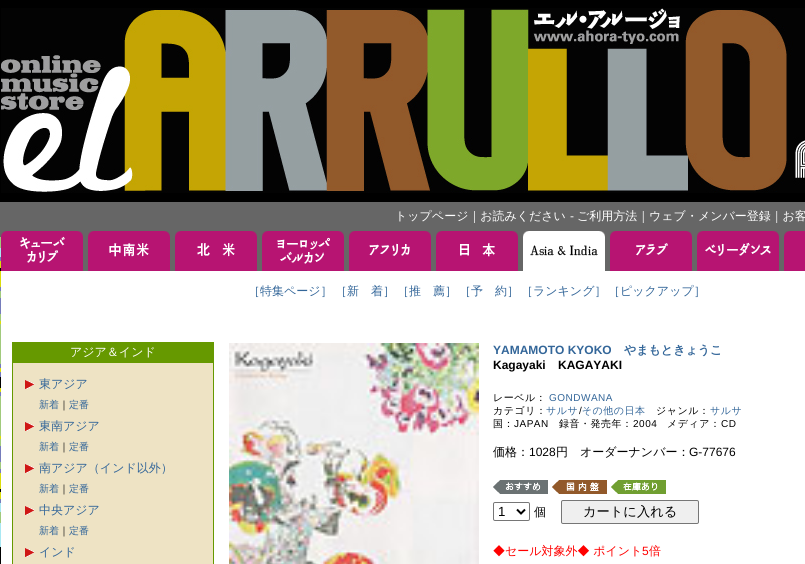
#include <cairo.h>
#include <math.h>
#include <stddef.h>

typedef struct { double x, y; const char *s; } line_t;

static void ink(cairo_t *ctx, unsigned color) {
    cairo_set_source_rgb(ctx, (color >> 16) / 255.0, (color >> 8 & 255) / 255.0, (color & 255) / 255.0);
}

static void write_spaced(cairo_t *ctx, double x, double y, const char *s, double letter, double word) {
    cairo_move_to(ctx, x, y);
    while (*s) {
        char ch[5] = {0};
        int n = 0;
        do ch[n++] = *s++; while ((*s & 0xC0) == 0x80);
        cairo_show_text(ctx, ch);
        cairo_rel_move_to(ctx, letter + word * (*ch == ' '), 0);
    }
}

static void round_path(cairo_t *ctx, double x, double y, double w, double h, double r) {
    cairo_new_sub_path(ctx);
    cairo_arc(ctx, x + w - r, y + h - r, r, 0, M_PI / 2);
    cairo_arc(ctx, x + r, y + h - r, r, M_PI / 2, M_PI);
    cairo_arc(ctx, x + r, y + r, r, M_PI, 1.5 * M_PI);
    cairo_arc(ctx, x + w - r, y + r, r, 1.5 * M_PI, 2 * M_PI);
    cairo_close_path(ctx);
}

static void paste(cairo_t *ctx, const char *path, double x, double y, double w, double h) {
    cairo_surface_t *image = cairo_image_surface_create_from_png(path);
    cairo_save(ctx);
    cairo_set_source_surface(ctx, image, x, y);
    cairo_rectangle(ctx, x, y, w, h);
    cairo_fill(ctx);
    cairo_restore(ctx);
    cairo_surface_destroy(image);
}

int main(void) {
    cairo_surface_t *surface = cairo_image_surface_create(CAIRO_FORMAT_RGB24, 805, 564);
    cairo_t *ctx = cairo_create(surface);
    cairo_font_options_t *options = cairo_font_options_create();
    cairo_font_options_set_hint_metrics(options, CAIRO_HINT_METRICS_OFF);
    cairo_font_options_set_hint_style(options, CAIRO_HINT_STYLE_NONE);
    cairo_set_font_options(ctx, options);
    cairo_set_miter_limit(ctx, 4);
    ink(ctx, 0xFFFFFF);
    cairo_paint(ctx);
    paste(ctx, "media/1.png", 0, 230, 805, 334);
    ink(ctx, 0x000000);
    cairo_rectangle(ctx, 0, 0, 805, 202);
    cairo_fill(ctx);
    paste(ctx, "media/2.png", 1, 8, 804, 185);
    ink(ctx, 0x666666);
    cairo_rectangle(ctx, 0, 202, 805, 28);
    cairo_fill(ctx);
    cairo_select_font_face(ctx, "WenQuanYi Zen Hei Medium", CAIRO_FONT_SLANT_NORMAL, CAIRO_FONT_WEIGHT_NORMAL);
    cairo_set_font_size(ctx, 12);
    ink(ctx, 0xFFFFFF);
    cairo_move_to(ctx, 395, 220);
    cairo_show_text(ctx, "トップページ｜お読みください");
    cairo_select_font_face(ctx, "Liberation Sans", CAIRO_FONT_SLANT_NORMAL, CAIRO_FONT_WEIGHT_NORMAL);
    cairo_move_to(ctx, 570, 220);
    cairo_show_text(ctx, "-");
    cairo_select_font_face(ctx, "WenQuanYi Zen Hei Medium", CAIRO_FONT_SLANT_NORMAL, CAIRO_FONT_WEIGHT_NORMAL);
    cairo_move_to(ctx, 577, 220);
    cairo_show_text(ctx, "ご利用方法｜ウェブ・メンバー登録｜お客");
    paste(ctx, "media/3.png", 1, 231, 82, 40);
    ink(ctx, 0x666666);
    cairo_rectangle(ctx, 83, 231, 5, 40);
    cairo_fill(ctx);
    paste(ctx, "media/4.png", 88, 231, 82, 40);
    cairo_rectangle(ctx, 170, 231, 5, 40);
    cairo_fill(ctx);
    paste(ctx, "media/5.png", 175, 231, 82, 40);
    cairo_rectangle(ctx, 257, 231, 5, 40);
    cairo_fill(ctx);
    paste(ctx, "media/6.png", 262, 231, 82, 40);
    cairo_rectangle(ctx, 344, 231, 5, 40);
    cairo_fill(ctx);
    paste(ctx, "media/7.png", 349, 231, 82, 40);
    cairo_rectangle(ctx, 431, 231, 5, 40);
    cairo_fill(ctx);
    paste(ctx, "media/8.png", 436, 231, 82, 40);
    cairo_rectangle(ctx, 518, 231, 5, 40);
    cairo_fill(ctx);
    paste(ctx, "media/9.png", 523, 231, 82, 40);
    cairo_rectangle(ctx, 605, 231, 5, 40);
    cairo_fill(ctx);
    paste(ctx, "media/10.png", 610, 231, 82, 40);
    cairo_rectangle(ctx, 692, 231, 5, 40);
    cairo_fill(ctx);
    paste(ctx, "media/11.png", 697, 231, 82, 40);
    cairo_rectangle(ctx, 779, 231, 5, 40);
    cairo_fill(ctx);
    paste(ctx, "media/12.png", 784, 231, 21, 40);
    ink(ctx, 0xFFFFFF);
    cairo_rectangle(ctx, 1, 271, 804, 293);
    cairo_fill(ctx);
    ink(ctx, 0x336699);
    {
        static const line_t items[] = {
            {248, 295, "［特集ページ］"},
            {335, 295, "［新　着］"},
            {397, 295, "［推　薦］"},
            {459, 295, "［予　約］"},
            {521, 295, "［ランキング］"},
            {608, 295, "［ピックアップ］"},
        };
        for (size_t i = 0; i < sizeof items / sizeof *items; i++) {
            cairo_move_to(ctx, items[i].x, items[i].y);
            cairo_show_text(ctx, items[i].s);
        }
    }
    ink(ctx, 0x669900);
    cairo_rectangle(ctx, 12, 342, 202, 20);
    cairo_fill(ctx);
    ink(ctx, 0xFFFFFF);
    cairo_move_to(ctx, 70, 356);
    cairo_show_text(ctx, "アジア＆インド");
    ink(ctx, 0xEEE3C4);
    cairo_rectangle(ctx, 12.5, 362.5, 201, 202);
    cairo_fill_preserve(ctx);
    ink(ctx, 0x669900);
    cairo_set_line_width(ctx, 1);
    cairo_stroke(ctx);
    paste(ctx, "media/13.png", 25, 380, 9, 9);
    ink(ctx, 0x336699);
    cairo_move_to(ctx, 39, 388);
    cairo_show_text(ctx, "東アジア");
    cairo_set_font_size(ctx, 10);
    cairo_move_to(ctx, 39, 408);
    cairo_show_text(ctx, "新着");
    ink(ctx, 0x000000);
    cairo_move_to(ctx, 59, 408);
    cairo_show_text(ctx, "｜");
    ink(ctx, 0x336699);
    cairo_move_to(ctx, 69, 408);
    cairo_show_text(ctx, "定番");
    paste(ctx, "media/13.png", 25, 422, 9, 9);
    cairo_set_font_size(ctx, 12);
    cairo_move_to(ctx, 39, 430);
    cairo_show_text(ctx, "東南アジア");
    cairo_set_font_size(ctx, 10);
    cairo_move_to(ctx, 39, 450);
    cairo_show_text(ctx, "新着");
    ink(ctx, 0x000000);
    cairo_move_to(ctx, 59, 450);
    cairo_show_text(ctx, "｜");
    ink(ctx, 0x336699);
    cairo_move_to(ctx, 69, 450);
    cairo_show_text(ctx, "定番");
    paste(ctx, "media/13.png", 25, 464, 9, 9);
    cairo_set_font_size(ctx, 12);
    cairo_move_to(ctx, 39, 472);
    cairo_show_text(ctx, "南アジア（インド以外）");
    cairo_set_font_size(ctx, 10);
    cairo_move_to(ctx, 39, 492);
    cairo_show_text(ctx, "新着");
    ink(ctx, 0x000000);
    cairo_move_to(ctx, 59, 492);
    cairo_show_text(ctx, "｜");
    ink(ctx, 0x336699);
    cairo_move_to(ctx, 69, 492);
    cairo_show_text(ctx, "定番");
    paste(ctx, "media/13.png", 25, 506, 9, 9);
    cairo_set_font_size(ctx, 12);
    cairo_move_to(ctx, 39, 514);
    cairo_show_text(ctx, "中央アジア");
    cairo_set_font_size(ctx, 10);
    cairo_move_to(ctx, 39, 534);
    cairo_show_text(ctx, "新着");
    ink(ctx, 0x000000);
    cairo_move_to(ctx, 59, 534);
    cairo_show_text(ctx, "｜");
    ink(ctx, 0x336699);
    cairo_move_to(ctx, 69, 534);
    cairo_show_text(ctx, "定番");
    paste(ctx, "media/13.png", 25, 548, 9, 9);
    cairo_set_font_size(ctx, 12);
    cairo_move_to(ctx, 39, 556);
    cairo_show_text(ctx, "インド");
    paste(ctx, "media/14.png", 229, 343, 250, 221);
    cairo_select_font_face(ctx, "Liberation Sans", CAIRO_FONT_SLANT_NORMAL, CAIRO_FONT_WEIGHT_BOLD);
    cairo_move_to(ctx, 493, 354);
    cairo_show_text(ctx, "YAMAMOTO KYOKO");
    cairo_select_font_face(ctx, "WenQuanYi Zen Hei", CAIRO_FONT_SLANT_NORMAL, CAIRO_FONT_WEIGHT_BOLD);
    cairo_move_to(ctx, 624, 354);
    cairo_show_text(ctx, "やまもときょうこ");
    cairo_select_font_face(ctx, "Liberation Sans", CAIRO_FONT_SLANT_NORMAL, CAIRO_FONT_WEIGHT_BOLD);
    ink(ctx, 0x000000);
    cairo_move_to(ctx, 493, 369);
    cairo_show_text(ctx, "Kagayaki");
    cairo_move_to(ctx, 558, 369);
    cairo_show_text(ctx, "KAGAYAKI");
    cairo_select_font_face(ctx, "WenQuanYi Zen Hei Medium", CAIRO_FONT_SLANT_NORMAL, CAIRO_FONT_WEIGHT_NORMAL);
    cairo_set_font_size(ctx, 10);
    write_spaced(ctx, 493, 401, "レーベル：", 0.5, 0);
    cairo_select_font_face(ctx, "Liberation Sans", CAIRO_FONT_SLANT_NORMAL, CAIRO_FONT_WEIGHT_NORMAL);
    ink(ctx, 0x336699);
    write_spaced(ctx, 549, 401, "GONDWANA", 0.5, 0);
    cairo_select_font_face(ctx, "WenQuanYi Zen Hei Medium", CAIRO_FONT_SLANT_NORMAL, CAIRO_FONT_WEIGHT_NORMAL);
    ink(ctx, 0x000000);
    write_spaced(ctx, 493, 414, "カテゴリ：", 0.5, 0);
    ink(ctx, 0x336699);
    write_spaced(ctx, 546, 414, "サルサ その他の日本", 0.5, 0);
    cairo_select_font_face(ctx, "Liberation Sans", CAIRO_FONT_SLANT_NORMAL, CAIRO_FONT_WEIGHT_NORMAL);
    ink(ctx, 0x000000);
    write_spaced(ctx, 579, 414, "/", 0.5, 0);
    cairo_select_font_face(ctx, "WenQuanYi Zen Hei Medium", CAIRO_FONT_SLANT_NORMAL, CAIRO_FONT_WEIGHT_NORMAL);
    write_spaced(ctx, 656, 414, "ジャンル：", 0.5, 0);
    ink(ctx, 0x336699);
    write_spaced(ctx, 710, 414, "サルサ", 0.5, 0);
    ink(ctx, 0x000000);
    write_spaced(ctx, 493, 427, "国：", 0.5, 0);
    cairo_select_font_face(ctx, "Liberation Sans", CAIRO_FONT_SLANT_NORMAL, CAIRO_FONT_WEIGHT_NORMAL);
    write_spaced(ctx, 514, 427, "JAPAN", 0.5, 0);
    cairo_select_font_face(ctx, "WenQuanYi Zen Hei Medium", CAIRO_FONT_SLANT_NORMAL, CAIRO_FONT_WEIGHT_NORMAL);
    write_spaced(ctx, 559, 427, "録音・発売年：", 0.5, 0);
    cairo_select_font_face(ctx, "Liberation Sans", CAIRO_FONT_SLANT_NORMAL, CAIRO_FONT_WEIGHT_NORMAL);
    write_spaced(ctx, 633, 427, "2004", 0.5, 0);
    cairo_select_font_face(ctx, "WenQuanYi Zen Hei Medium", CAIRO_FONT_SLANT_NORMAL, CAIRO_FONT_WEIGHT_NORMAL);
    write_spaced(ctx, 667, 427, "メディア：", 0.5, 0);
    cairo_select_font_face(ctx, "Liberation Sans", CAIRO_FONT_SLANT_NORMAL, CAIRO_FONT_WEIGHT_NORMAL);
    write_spaced(ctx, 721, 427, "CD", 0.5, 0);
    cairo_select_font_face(ctx, "WenQuanYi Zen Hei Medium", CAIRO_FONT_SLANT_NORMAL, CAIRO_FONT_WEIGHT_NORMAL);
    cairo_set_font_size(ctx, 12);
    cairo_move_to(ctx, 493, 456);
    cairo_show_text(ctx, "価格：");
    cairo_select_font_face(ctx, "Liberation Sans", CAIRO_FONT_SLANT_NORMAL, CAIRO_FONT_WEIGHT_NORMAL);
    cairo_move_to(ctx, 529, 456);
    cairo_show_text(ctx, "1028");
    cairo_select_font_face(ctx, "WenQuanYi Zen Hei Medium", CAIRO_FONT_SLANT_NORMAL, CAIRO_FONT_WEIGHT_NORMAL);
    cairo_move_to(ctx, 556, 456);
    cairo_show_text(ctx, "円　オーダーナンバー：");
    cairo_select_font_face(ctx, "Liberation Sans", CAIRO_FONT_SLANT_NORMAL, CAIRO_FONT_WEIGHT_NORMAL);
    cairo_move_to(ctx, 689, 456);
    cairo_show_text(ctx, "G-77676");
    paste(ctx, "media/15.png", 493, 480, 55, 14);
    paste(ctx, "media/16.png", 552, 480, 55, 14);
    paste(ctx, "media/17.png", 611, 480, 55, 14);
    round_path(ctx, 493.5, 502.5, 36, 18, 1.5);
    ink(ctx, 0x767676);
    cairo_stroke(ctx);
    cairo_new_path(ctx);
    cairo_move_to(ctx, 517, 509.5);
    cairo_line_to(ctx, 521, 513.5);
    cairo_line_to(ctx, 525, 509.5);
    ink(ctx, 0x000000);
    cairo_set_line_width(ctx, 2);
    cairo_stroke(ctx);
    cairo_set_font_size(ctx, 13.25);
    cairo_move_to(ctx, 498, 516);
    cairo_show_text(ctx, "1");
    cairo_select_font_face(ctx, "WenQuanYi Zen Hei Medium", CAIRO_FONT_SLANT_NORMAL, CAIRO_FONT_WEIGHT_NORMAL);
    cairo_set_font_size(ctx, 12);
    cairo_move_to(ctx, 534, 516);
    cairo_show_text(ctx, "個");
    ink(ctx, 0xEFEFEF);
    round_path(ctx, 561.5, 500.5, 137, 23, 1.5);
    cairo_fill_preserve(ctx);
    ink(ctx, 0x767676);
    cairo_set_line_width(ctx, 1);
    cairo_stroke(ctx);
    cairo_set_font_size(ctx, 13.25);
    ink(ctx, 0x000000);
    cairo_move_to(ctx, 583, 516);
    cairo_show_text(ctx, "カートに入れる");
    cairo_set_font_size(ctx, 12);
    ink(ctx, 0xFF0000);
    cairo_move_to(ctx, 493, 555);
    cairo_show_text(ctx, "◆セール対象外◆ ポイント");
    cairo_select_font_face(ctx, "Liberation Sans", CAIRO_FONT_SLANT_NORMAL, CAIRO_FONT_WEIGHT_NORMAL);
    cairo_move_to(ctx, 642, 555);
    cairo_show_text(ctx, "5");
    cairo_select_font_face(ctx, "WenQuanYi Zen Hei Medium", CAIRO_FONT_SLANT_NORMAL, CAIRO_FONT_WEIGHT_NORMAL);
    cairo_move_to(ctx, 649, 555);
    cairo_show_text(ctx, "倍");
    cairo_surface_write_to_png(surface, "image.png");
    cairo_font_options_destroy(options);
    cairo_destroy(ctx);
    cairo_surface_destroy(surface);
    return 0;
}
